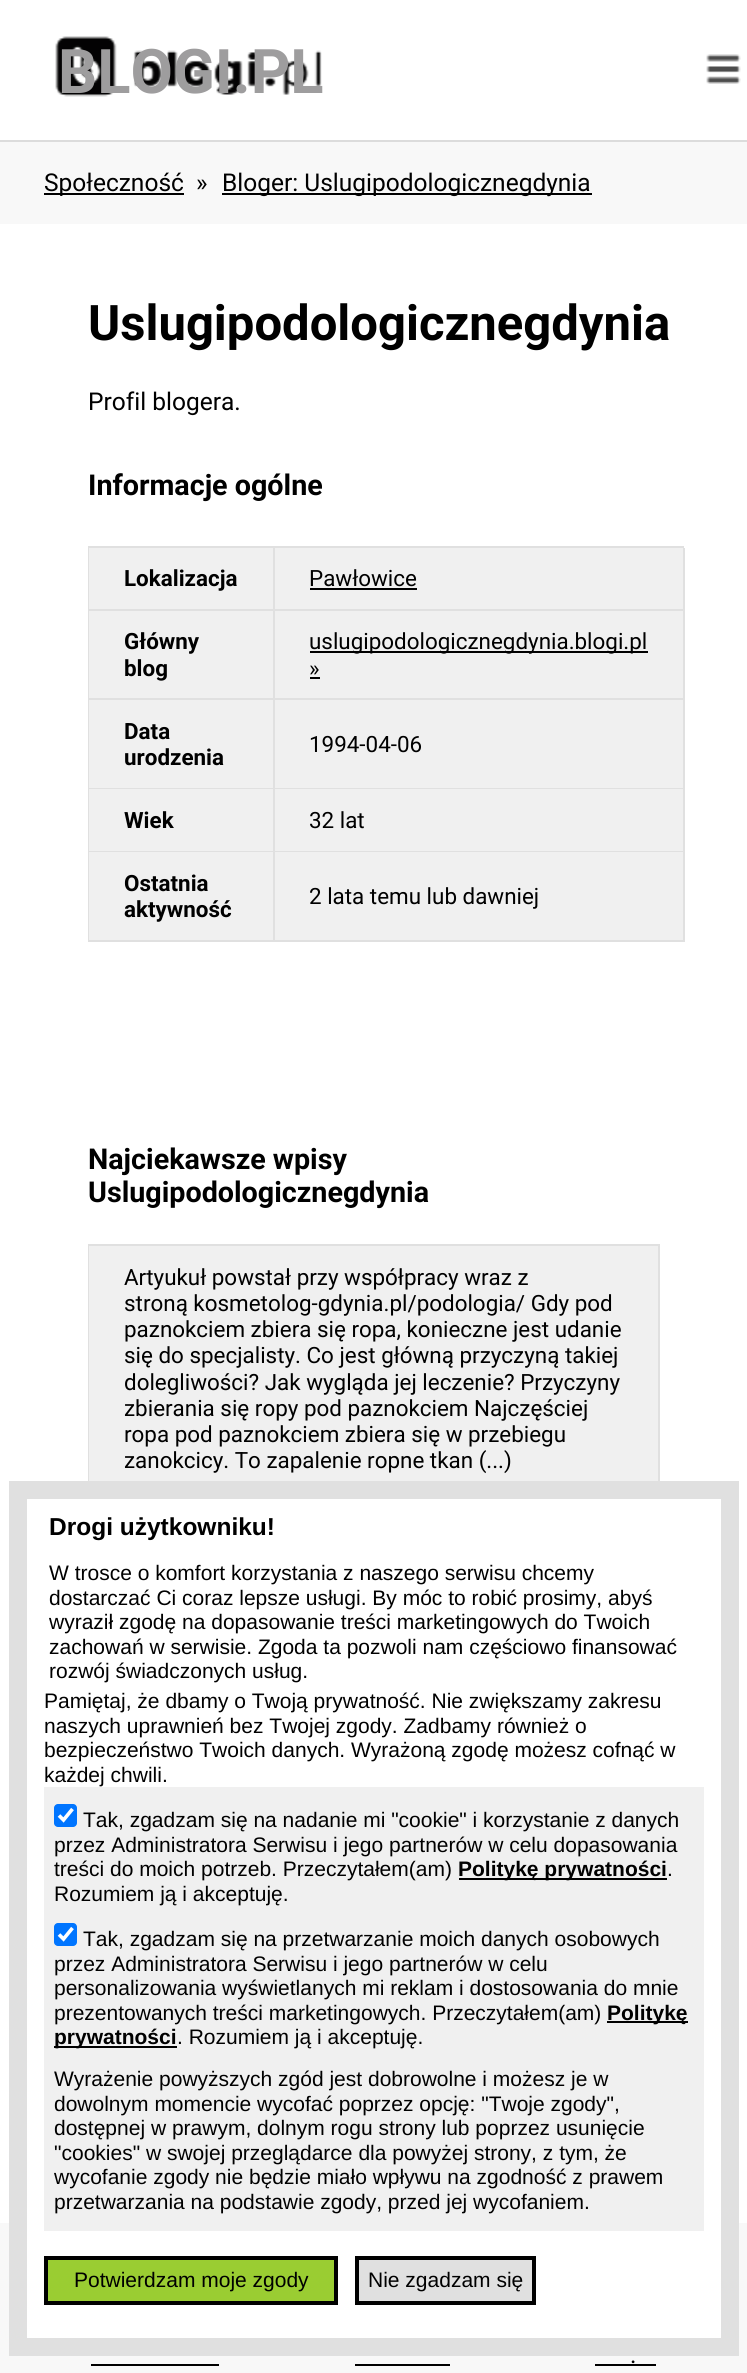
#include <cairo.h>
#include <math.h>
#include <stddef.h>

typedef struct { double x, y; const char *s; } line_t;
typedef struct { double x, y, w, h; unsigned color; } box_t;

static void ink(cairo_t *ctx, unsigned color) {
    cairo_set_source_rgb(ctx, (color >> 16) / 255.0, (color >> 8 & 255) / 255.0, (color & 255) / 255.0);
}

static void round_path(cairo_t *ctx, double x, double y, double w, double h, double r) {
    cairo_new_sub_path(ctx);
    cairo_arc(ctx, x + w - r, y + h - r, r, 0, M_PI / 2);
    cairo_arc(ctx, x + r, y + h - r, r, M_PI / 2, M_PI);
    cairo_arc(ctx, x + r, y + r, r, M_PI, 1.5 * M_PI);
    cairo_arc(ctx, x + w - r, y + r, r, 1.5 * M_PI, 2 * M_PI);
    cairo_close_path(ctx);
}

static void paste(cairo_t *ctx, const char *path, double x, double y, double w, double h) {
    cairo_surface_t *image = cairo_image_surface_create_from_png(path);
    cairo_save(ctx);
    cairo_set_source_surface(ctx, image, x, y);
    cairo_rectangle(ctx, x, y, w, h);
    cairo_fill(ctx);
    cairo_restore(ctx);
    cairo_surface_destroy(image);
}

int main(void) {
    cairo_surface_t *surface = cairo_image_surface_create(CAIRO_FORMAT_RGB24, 747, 2373);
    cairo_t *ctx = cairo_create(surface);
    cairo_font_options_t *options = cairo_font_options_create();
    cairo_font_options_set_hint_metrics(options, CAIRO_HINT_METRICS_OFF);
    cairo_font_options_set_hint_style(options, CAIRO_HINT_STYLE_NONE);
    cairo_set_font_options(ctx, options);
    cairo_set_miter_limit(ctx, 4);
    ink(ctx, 0xF8F8F8);
    cairo_paint(ctx);
    ink(ctx, 0xFFFFFF);
    cairo_rectangle(ctx, 0, 0, 747, 140);
    cairo_fill(ctx);
    ink(ctx, 0xDCDCDC);
    cairo_rectangle(ctx, 0, 140, 747, 2);
    cairo_fill(ctx);
    paste(ctx, "media/1.png", 55, 36, 267, 61);
    cairo_select_font_face(ctx, "Roboto", CAIRO_FONT_SLANT_NORMAL, CAIRO_FONT_WEIGHT_BOLD);
    cairo_set_font_size(ctx, 61.5);
    ink(ctx, 0x9E9D9E);
    cairo_move_to(ctx, 58, 93);
    cairo_show_text(ctx, "BLOGI.PL");
    paste(ctx, "media/2.png", 706, 54, 35, 30);
    ink(ctx, 0x000000);
    cairo_rectangle(ctx, 44, 193, 140, 2);
    cairo_fill(ctx);
    cairo_select_font_face(ctx, "Roboto", CAIRO_FONT_SLANT_NORMAL, CAIRO_FONT_WEIGHT_NORMAL);
    cairo_set_font_size(ctx, 24.5);
    cairo_move_to(ctx, 44, 191);
    cairo_show_text(ctx, "Społeczność");
    cairo_move_to(ctx, 196, 191);
    cairo_show_text(ctx, "»");
    cairo_rectangle(ctx, 222, 193, 370, 2);
    cairo_fill(ctx);
    cairo_move_to(ctx, 222, 191);
    cairo_show_text(ctx, "Bloger: Uslugipodologicznegdynia");
    ink(ctx, 0xFFFFFF);
    cairo_rectangle(ctx, 0, 224, 747, 1999);
    cairo_fill(ctx);
    cairo_select_font_face(ctx, "Roboto", CAIRO_FONT_SLANT_NORMAL, CAIRO_FONT_WEIGHT_BOLD);
    cairo_set_font_size(ctx, 49);
    ink(ctx, 0x000000);
    cairo_move_to(ctx, 88, 340);
    cairo_show_text(ctx, "Uslugipodologicznegdynia");
    cairo_select_font_face(ctx, "Roboto", CAIRO_FONT_SLANT_NORMAL, CAIRO_FONT_WEIGHT_NORMAL);
    cairo_set_font_size(ctx, 24.5);
    cairo_move_to(ctx, 88, 410);
    cairo_show_text(ctx, "Profil blogera.");
    cairo_select_font_face(ctx, "Roboto", CAIRO_FONT_SLANT_NORMAL, CAIRO_FONT_WEIGHT_BOLD);
    cairo_set_font_size(ctx, 28.7);
    cairo_move_to(ctx, 88, 495);
    cairo_show_text(ctx, "Informacje ogólne");
    {
        static const box_t items[] = {
            {88, 546, 596, 2, 0xE0E0E0},
            {88, 546, 2, 396, 0xE0E0E0},
            {89, 548, 184, 61, 0xF0F0F0},
            {273, 548, 2, 394, 0xE0E0E0},
            {89, 609, 186, 2, 0xE0E0E0},
        };
        for (size_t i = 0; i < sizeof items / sizeof *items; i++) {
            ink(ctx, items[i].color);
            cairo_rectangle(ctx, items[i].x, items[i].y, items[i].w, items[i].h);
            cairo_fill(ctx);
        }
    }
    cairo_set_font_size(ctx, 22.4);
    ink(ctx, 0x000000);
    cairo_move_to(ctx, 124, 586);
    cairo_show_text(ctx, "Lokalizacja");
    {
        static const box_t items[] = {
            {275, 548, 408, 61, 0xF0F0F0},
            {683, 548, 2, 394, 0xE0E0E0},
            {275, 609, 409, 2, 0xE0E0E0},
        };
        for (size_t i = 0; i < sizeof items / sizeof *items; i++) {
            ink(ctx, items[i].color);
            cairo_rectangle(ctx, items[i].x, items[i].y, items[i].w, items[i].h);
            cairo_fill(ctx);
        }
    }
    cairo_select_font_face(ctx, "Roboto", CAIRO_FONT_SLANT_NORMAL, CAIRO_FONT_WEIGHT_NORMAL);
    ink(ctx, 0x000000);
    cairo_move_to(ctx, 309, 586);
    cairo_show_text(ctx, "Pawłowice");
    {
        static const box_t items[] = {
            {310, 588, 107, 2, 0x000000},
            {89, 611, 184, 87, 0xF0F0F0},
            {89, 698, 595, 2, 0xE0E0E0},
        };
        for (size_t i = 0; i < sizeof items / sizeof *items; i++) {
            ink(ctx, items[i].color);
            cairo_rectangle(ctx, items[i].x, items[i].y, items[i].w, items[i].h);
            cairo_fill(ctx);
        }
    }
    cairo_select_font_face(ctx, "Roboto", CAIRO_FONT_SLANT_NORMAL, CAIRO_FONT_WEIGHT_BOLD);
    ink(ctx, 0x000000);
    cairo_move_to(ctx, 124, 649);
    cairo_show_text(ctx, "Główny");
    cairo_move_to(ctx, 124, 676);
    cairo_show_text(ctx, "blog");
    ink(ctx, 0xF0F0F0);
    cairo_rectangle(ctx, 275, 611, 408, 87);
    cairo_fill(ctx);
    ink(ctx, 0x000000);
    cairo_rectangle(ctx, 310, 651, 338, 2);
    cairo_fill(ctx);
    cairo_select_font_face(ctx, "Roboto", CAIRO_FONT_SLANT_NORMAL, CAIRO_FONT_WEIGHT_NORMAL);
    cairo_move_to(ctx, 309, 649);
    cairo_show_text(ctx, "uslugipodologicznegdynia.blogi.pl");
    cairo_move_to(ctx, 309, 676);
    cairo_show_text(ctx, "»");
    {
        static const box_t items[] = {
            {310, 677, 10, 2, 0x000000},
            {89, 700, 184, 88, 0xF0F0F0},
            {89, 788, 595, 1, 0xE0E0E0},
        };
        for (size_t i = 0; i < sizeof items / sizeof *items; i++) {
            ink(ctx, items[i].color);
            cairo_rectangle(ctx, items[i].x, items[i].y, items[i].w, items[i].h);
            cairo_fill(ctx);
        }
    }
    cairo_select_font_face(ctx, "Roboto", CAIRO_FONT_SLANT_NORMAL, CAIRO_FONT_WEIGHT_BOLD);
    ink(ctx, 0x000000);
    cairo_move_to(ctx, 124, 739);
    cairo_show_text(ctx, "Data");
    cairo_move_to(ctx, 124, 765);
    cairo_show_text(ctx, "urodzenia");
    ink(ctx, 0xF0F0F0);
    cairo_rectangle(ctx, 275, 700, 408, 88);
    cairo_fill(ctx);
    cairo_select_font_face(ctx, "Roboto", CAIRO_FONT_SLANT_NORMAL, CAIRO_FONT_WEIGHT_NORMAL);
    ink(ctx, 0x000000);
    cairo_move_to(ctx, 309, 752);
    cairo_show_text(ctx, "1994-04-06");
    ink(ctx, 0xF0F0F0);
    cairo_rectangle(ctx, 89, 789, 184, 62);
    cairo_fill(ctx);
    ink(ctx, 0xE0E0E0);
    cairo_rectangle(ctx, 89, 851, 595, 1);
    cairo_fill(ctx);
    cairo_select_font_face(ctx, "Roboto", CAIRO_FONT_SLANT_NORMAL, CAIRO_FONT_WEIGHT_BOLD);
    ink(ctx, 0x000000);
    cairo_move_to(ctx, 124, 828);
    cairo_show_text(ctx, "Wiek");
    ink(ctx, 0xF0F0F0);
    cairo_rectangle(ctx, 275, 789, 408, 62);
    cairo_fill(ctx);
    cairo_select_font_face(ctx, "Roboto", CAIRO_FONT_SLANT_NORMAL, CAIRO_FONT_WEIGHT_NORMAL);
    ink(ctx, 0x000000);
    cairo_move_to(ctx, 309, 828);
    cairo_show_text(ctx, "32 lat");
    ink(ctx, 0xF0F0F0);
    cairo_rectangle(ctx, 89, 852, 184, 88);
    cairo_fill(ctx);
    ink(ctx, 0xE0E0E0);
    cairo_rectangle(ctx, 89, 940, 595, 2);
    cairo_fill(ctx);
    cairo_select_font_face(ctx, "Roboto", CAIRO_FONT_SLANT_NORMAL, CAIRO_FONT_WEIGHT_BOLD);
    ink(ctx, 0x000000);
    cairo_move_to(ctx, 124, 891);
    cairo_show_text(ctx, "Ostatnia");
    cairo_move_to(ctx, 124, 917);
    cairo_show_text(ctx, "aktywność");
    ink(ctx, 0xF0F0F0);
    cairo_rectangle(ctx, 275, 852, 408, 88);
    cairo_fill(ctx);
    cairo_select_font_face(ctx, "Roboto", CAIRO_FONT_SLANT_NORMAL, CAIRO_FONT_WEIGHT_NORMAL);
    ink(ctx, 0x000000);
    cairo_move_to(ctx, 309, 904);
    cairo_show_text(ctx, "2 lata temu lub dawniej");
    cairo_select_font_face(ctx, "Roboto", CAIRO_FONT_SLANT_NORMAL, CAIRO_FONT_WEIGHT_BOLD);
    cairo_set_font_size(ctx, 28.7);
    cairo_move_to(ctx, 88, 1169);
    cairo_show_text(ctx, "Najciekawsze wpisy");
    cairo_move_to(ctx, 88, 1202);
    cairo_show_text(ctx, "Uslugipodologicznegdynia");
    {
        static const box_t items[] = {
            {88, 1244, 572, 2, 0xE0E0E0},
            {88, 1244, 2, 237, 0xE0E0E0},
            {89, 1246, 569, 235, 0xF0F0F0},
            {658, 1246, 2, 235, 0xE0E0E0},
        };
        for (size_t i = 0; i < sizeof items / sizeof *items; i++) {
            ink(ctx, items[i].color);
            cairo_rectangle(ctx, items[i].x, items[i].y, items[i].w, items[i].h);
            cairo_fill(ctx);
        }
    }
    cairo_select_font_face(ctx, "Roboto", CAIRO_FONT_SLANT_NORMAL, CAIRO_FONT_WEIGHT_NORMAL);
    cairo_set_font_size(ctx, 22.4);
    ink(ctx, 0x000000);
    {
        static const line_t items[] = {
            {124, 1285, "Artyukuł powstał przy współpracy wraz z"},
            {124, 1311, "stroną kosmetolog-gdynia.pl/podologia/ Gdy pod"},
            {124, 1337, "paznokciem zbiera się ropa, konieczne jest udanie"},
            {124, 1363, "się do specjalisty. Co jest główną przyczyną takiej"},
            {124, 1390, "dolegliwości? Jak wygląda jej leczenie? Przyczyny"},
            {124, 1416, "zbierania się ropy pod paznokciem Najczęściej"},
            {124, 1442, "ropa pod paznokciem zbiera się w przebiegu"},
            {124, 1468, "zanokcicy. To zapalenie ropne tkan (...)"},
        };
        for (size_t i = 0; i < sizeof items / sizeof *items; i++) {
            cairo_move_to(ctx, items[i].x, items[i].y);
            cairo_show_text(ctx, items[i].s);
        }
    }
    ink(ctx, 0xFFFFFF);
    cairo_rectangle(ctx, 27, 2223, 694, 115);
    cairo_fill(ctx);
    cairo_rectangle(ctx, 18, 1490, 712, 857);
    ink(ctx, 0xE0E0E0);
    cairo_set_line_width(ctx, 18);
    cairo_stroke(ctx);
    cairo_select_font_face(ctx, "Liberation Sans", CAIRO_FONT_SLANT_NORMAL, CAIRO_FONT_WEIGHT_BOLD);
    cairo_set_font_size(ctx, 24.5);
    ink(ctx, 0x000000);
    cairo_move_to(ctx, 49, 1535);
    cairo_show_text(ctx, "Drogi użytkowniku!");
    cairo_select_font_face(ctx, "Liberation Sans", CAIRO_FONT_SLANT_NORMAL, CAIRO_FONT_WEIGHT_NORMAL);
    cairo_set_font_size(ctx, 21);
    {
        static const line_t items[] = {
            {49, 1580, "W trosce o komfort korzystania z naszego serwisu chcemy"},
            {49, 1605, "dostarczać Ci coraz lepsze usługi. By móc to robić prosimy, abyś"},
            {49, 1629, "wyraził zgodę na dopasowanie treści marketingowych do Twoich"},
            {49, 1654, "zachowań w serwisie. Zgoda ta pozwoli nam częściowo finansować"},
            {49, 1678, "rozwój świadczonych usług."},
            {44, 1708, "Pamiętaj, że dbamy o Twoją prywatność. Nie zwiększamy zakresu"},
            {44, 1733, "naszych uprawnień bez Twojej zgody. Zadbamy również o"},
            {44, 1757, "bezpieczeństwo Twoich danych. Wyrażoną zgodę możesz cofnąć w"},
            {44, 1782, "każdej chwili."},
        };
        for (size_t i = 0; i < sizeof items / sizeof *items; i++) {
            cairo_move_to(ctx, items[i].x, items[i].y);
            cairo_show_text(ctx, items[i].s);
        }
    }
    ink(ctx, 0xF0F0F0);
    cairo_rectangle(ctx, 44, 1787, 660, 444);
    cairo_fill(ctx);
    ink(ctx, 0x0075FF);
    round_path(ctx, 54, 1804, 23, 23, 4);
    cairo_fill(ctx);
    cairo_new_path(ctx);
    cairo_move_to(ctx, 59, 1815.5);
    cairo_line_to(ctx, 63.5, 1820);
    cairo_line_to(ctx, 72.5, 1809);
    ink(ctx, 0xFFFFFF);
    cairo_set_line_width(ctx, 3.6);
    cairo_stroke(ctx);
    ink(ctx, 0x000000);
    {
        static const line_t items[] = {
            {83, 1827, "Tak, zgadzam się na nadanie mi \"cookie\" i korzystanie z danych"},
            {54, 1852, "przez Administratora Serwisu i jego partnerów w celu dopasowania"},
            {54, 1876, "treści do moich potrzeb. Przeczytałem(am)"},
        };
        for (size_t i = 0; i < sizeof items / sizeof *items; i++) {
            cairo_move_to(ctx, items[i].x, items[i].y);
            cairo_show_text(ctx, items[i].s);
        }
    }
    cairo_rectangle(ctx, 459, 1878, 208, 2);
    cairo_fill(ctx);
    cairo_select_font_face(ctx, "Liberation Sans", CAIRO_FONT_SLANT_NORMAL, CAIRO_FONT_WEIGHT_BOLD);
    cairo_move_to(ctx, 458, 1876);
    cairo_show_text(ctx, "Politykę prywatności");
    cairo_select_font_face(ctx, "Liberation Sans", CAIRO_FONT_SLANT_NORMAL, CAIRO_FONT_WEIGHT_NORMAL);
    cairo_move_to(ctx, 667, 1876);
    cairo_show_text(ctx, ".");
    cairo_move_to(ctx, 54, 1901);
    cairo_show_text(ctx, "Rozumiem ją i akceptuję.");
    ink(ctx, 0x0075FF);
    round_path(ctx, 54, 1923, 23, 23, 4);
    cairo_fill(ctx);
    cairo_new_path(ctx);
    cairo_move_to(ctx, 59, 1934.5);
    cairo_line_to(ctx, 63.5, 1939);
    cairo_line_to(ctx, 72.5, 1928);
    ink(ctx, 0xFFFFFF);
    cairo_stroke(ctx);
    ink(ctx, 0x000000);
    {
        static const line_t items[] = {
            {83, 1946, "Tak, zgadzam się na przetwarzanie moich danych osobowych"},
            {54, 1971, "przez Administratora Serwisu i jego partnerów w celu"},
            {54, 1995, "personalizowania wyświetlanych mi reklam i dostosowania do mnie"},
            {54, 2020, "prezentowanych treści marketingowych. Przeczytałem(am)"},
        };
        for (size_t i = 0; i < sizeof items / sizeof *items; i++) {
            cairo_move_to(ctx, items[i].x, items[i].y);
            cairo_show_text(ctx, items[i].s);
        }
    }
    cairo_rectangle(ctx, 607, 2021, 81, 2);
    cairo_fill(ctx);
    cairo_select_font_face(ctx, "Liberation Sans", CAIRO_FONT_SLANT_NORMAL, CAIRO_FONT_WEIGHT_BOLD);
    cairo_move_to(ctx, 607, 2020);
    cairo_show_text(ctx, "Politykę");
    cairo_rectangle(ctx, 54, 2046, 123, 2);
    cairo_fill(ctx);
    cairo_move_to(ctx, 54, 2044);
    cairo_show_text(ctx, "prywatności");
    cairo_select_font_face(ctx, "Liberation Sans", CAIRO_FONT_SLANT_NORMAL, CAIRO_FONT_WEIGHT_NORMAL);
    {
        static const line_t items[] = {
            {177, 2044, ". Rozumiem ją i akceptuję."},
            {54, 2086, "Wyrażenie powyższych zgód jest dobrowolne i możesz je w"},
            {54, 2111, "dowolnym momencie wycofać poprzez opcję: \"Twoje zgody\","},
            {54, 2135, "dostępnej w prawym, dolnym rogu strony lub poprzez usunięcie"},
            {54, 2160, "\"cookies\" w swojej przeglądarce dla powyżej strony, z tym, że"},
            {54, 2184, "wycofanie zgody nie będzie miało wpływu na zgodność z prawem"},
            {54, 2209, "przetwarzania na podstawie zgody, przed jej wycofaniem."},
        };
        for (size_t i = 0; i < sizeof items / sizeof *items; i++) {
            cairo_move_to(ctx, items[i].x, items[i].y);
            cairo_show_text(ctx, items[i].s);
        }
    }
    ink(ctx, 0x9ACD32);
    cairo_rectangle(ctx, 46, 2258, 290, 45);
    cairo_fill_preserve(ctx);
    ink(ctx, 0x000000);
    cairo_set_line_width(ctx, 4);
    cairo_stroke(ctx);
    cairo_move_to(ctx, 74, 2287);
    cairo_show_text(ctx, "Potwierdzam moje zgody");
    ink(ctx, 0xE0E0E0);
    cairo_rectangle(ctx, 357, 2258, 177, 45);
    cairo_fill_preserve(ctx);
    ink(ctx, 0x000000);
    cairo_stroke(ctx);
    cairo_move_to(ctx, 368, 2287);
    cairo_show_text(ctx, "Nie zgadzam się");
    cairo_select_font_face(ctx, "Roboto", CAIRO_FONT_SLANT_NORMAL, CAIRO_FONT_WEIGHT_NORMAL);
    cairo_set_font_size(ctx, 24.5);
    cairo_move_to(ctx, 630, 2363);
    cairo_show_text(ctx, ".");
    {
        static const box_t items[] = {
            {595, 2364, 61, 2, 0x000000},
            {91, 2364, 128, 2, 0x000000},
            {355, 2364, 95, 2, 0x000000},
        };
        for (size_t i = 0; i < sizeof items / sizeof *items; i++) {
            ink(ctx, items[i].color);
            cairo_rectangle(ctx, items[i].x, items[i].y, items[i].w, items[i].h);
            cairo_fill(ctx);
        }
    }
    cairo_surface_write_to_png(surface, "image.png");
    cairo_font_options_destroy(options);
    cairo_destroy(ctx);
    cairo_surface_destroy(surface);
    return 0;
}
